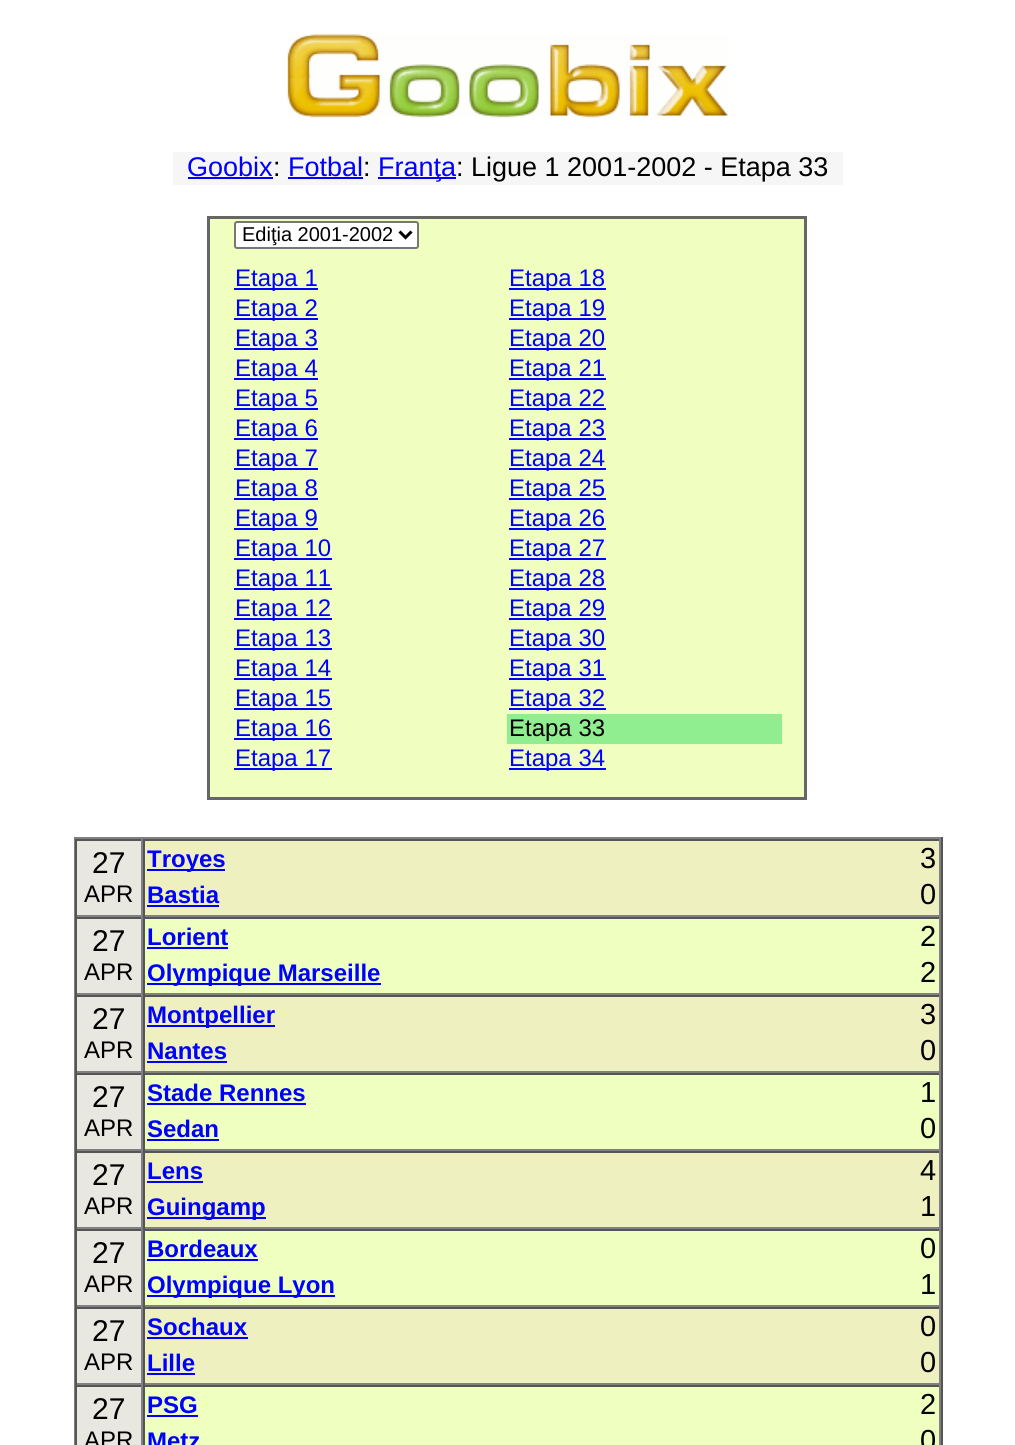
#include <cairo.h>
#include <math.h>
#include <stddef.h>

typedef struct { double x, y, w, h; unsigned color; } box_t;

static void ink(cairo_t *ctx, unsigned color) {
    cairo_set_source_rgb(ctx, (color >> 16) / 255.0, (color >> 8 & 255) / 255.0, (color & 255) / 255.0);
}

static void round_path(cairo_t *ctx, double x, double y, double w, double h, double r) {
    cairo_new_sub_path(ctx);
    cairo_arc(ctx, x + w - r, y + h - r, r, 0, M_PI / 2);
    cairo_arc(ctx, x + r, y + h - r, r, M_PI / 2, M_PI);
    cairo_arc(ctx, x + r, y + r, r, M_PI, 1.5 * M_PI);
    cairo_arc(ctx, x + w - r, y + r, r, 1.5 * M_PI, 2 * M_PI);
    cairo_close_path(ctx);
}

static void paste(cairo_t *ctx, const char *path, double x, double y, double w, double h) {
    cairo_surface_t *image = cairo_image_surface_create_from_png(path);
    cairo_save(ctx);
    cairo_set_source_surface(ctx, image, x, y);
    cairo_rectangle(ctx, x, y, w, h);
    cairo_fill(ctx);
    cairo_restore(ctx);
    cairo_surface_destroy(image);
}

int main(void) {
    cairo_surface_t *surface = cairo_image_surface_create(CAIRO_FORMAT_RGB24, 1015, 1445);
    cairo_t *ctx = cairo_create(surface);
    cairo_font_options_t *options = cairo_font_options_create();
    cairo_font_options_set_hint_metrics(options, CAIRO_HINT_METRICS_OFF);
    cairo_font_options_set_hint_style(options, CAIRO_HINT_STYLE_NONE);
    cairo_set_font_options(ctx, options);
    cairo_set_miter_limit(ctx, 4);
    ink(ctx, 0xFFFFFF);
    cairo_paint(ctx);
    paste(ctx, "media/1.png", 287, 34, 441, 84);
    ink(ctx, 0xF6F6F6);
    cairo_rectangle(ctx, 173, 152, 670, 33);
    cairo_fill(ctx);
    cairo_select_font_face(ctx, "Liberation Sans", CAIRO_FONT_SLANT_NORMAL, CAIRO_FONT_WEIGHT_NORMAL);
    cairo_set_font_size(ctx, 27);
    ink(ctx, 0x0000FF);
    cairo_move_to(ctx, 187, 176);
    cairo_show_text(ctx, "Goobix");
    ink(ctx, 0x000000);
    cairo_move_to(ctx, 273, 176);
    cairo_show_text(ctx, ":");
    ink(ctx, 0x0000FF);
    cairo_rectangle(ctx, 188, 177, 85, 2);
    cairo_fill(ctx);
    cairo_move_to(ctx, 288, 176);
    cairo_show_text(ctx, "Fotbal");
    ink(ctx, 0x000000);
    cairo_move_to(ctx, 363, 176);
    cairo_show_text(ctx, ":");
    ink(ctx, 0x0000FF);
    cairo_rectangle(ctx, 288, 177, 75, 2);
    cairo_fill(ctx);
    cairo_rectangle(ctx, 378, 177, 78, 2);
    cairo_fill(ctx);
    cairo_move_to(ctx, 378, 176);
    cairo_show_text(ctx, "Franţa");
    ink(ctx, 0x000000);
    cairo_move_to(ctx, 456, 176);
    cairo_show_text(ctx, ": Ligue 1 2001-2002 - Etapa 33");
    ink(ctx, 0xF0FFC0);
    cairo_rectangle(ctx, 208.5, 217.5, 597, 581);
    cairo_fill_preserve(ctx);
    ink(ctx, 0x666666);
    cairo_set_line_width(ctx, 3);
    cairo_stroke(ctx);
    ink(ctx, 0xFFFFFF);
    round_path(ctx, 235, 222, 183, 26, 2);
    cairo_fill_preserve(ctx);
    ink(ctx, 0x767676);
    cairo_set_line_width(ctx, 2);
    cairo_stroke(ctx);
    cairo_new_path(ctx);
    cairo_move_to(ctx, 399.5, 231.5);
    cairo_line_to(ctx, 405.5, 237.5);
    cairo_line_to(ctx, 411.5, 231.5);
    ink(ctx, 0x000000);
    cairo_set_line_width(ctx, 3);
    cairo_stroke(ctx);
    cairo_set_font_size(ctx, 20);
    cairo_move_to(ctx, 242, 241);
    cairo_show_text(ctx, "Ediţia 2001-2002");
    ink(ctx, 0x0000FF);
    cairo_rectangle(ctx, 234, 288, 84, 2);
    cairo_fill(ctx);
    cairo_set_font_size(ctx, 24);
    cairo_move_to(ctx, 235, 286);
    cairo_show_text(ctx, "Etapa 1");
    cairo_rectangle(ctx, 509, 288, 97, 2);
    cairo_fill(ctx);
    cairo_move_to(ctx, 509, 286);
    cairo_show_text(ctx, "Etapa 18");
    cairo_rectangle(ctx, 234, 318, 84, 2);
    cairo_fill(ctx);
    cairo_move_to(ctx, 235, 316);
    cairo_show_text(ctx, "Etapa 2");
    cairo_rectangle(ctx, 509, 318, 97, 2);
    cairo_fill(ctx);
    cairo_move_to(ctx, 509, 316);
    cairo_show_text(ctx, "Etapa 19");
    cairo_rectangle(ctx, 234, 348, 84, 2);
    cairo_fill(ctx);
    cairo_move_to(ctx, 235, 346);
    cairo_show_text(ctx, "Etapa 3");
    cairo_rectangle(ctx, 509, 348, 97, 2);
    cairo_fill(ctx);
    cairo_move_to(ctx, 509, 346);
    cairo_show_text(ctx, "Etapa 20");
    cairo_rectangle(ctx, 234, 378, 84, 2);
    cairo_fill(ctx);
    cairo_move_to(ctx, 235, 376);
    cairo_show_text(ctx, "Etapa 4");
    cairo_rectangle(ctx, 509, 378, 97, 2);
    cairo_fill(ctx);
    cairo_move_to(ctx, 509, 376);
    cairo_show_text(ctx, "Etapa 21");
    cairo_rectangle(ctx, 234, 408, 84, 2);
    cairo_fill(ctx);
    cairo_move_to(ctx, 235, 406);
    cairo_show_text(ctx, "Etapa 5");
    cairo_rectangle(ctx, 509, 408, 97, 2);
    cairo_fill(ctx);
    cairo_move_to(ctx, 509, 406);
    cairo_show_text(ctx, "Etapa 22");
    cairo_rectangle(ctx, 234, 438, 84, 2);
    cairo_fill(ctx);
    cairo_move_to(ctx, 235, 436);
    cairo_show_text(ctx, "Etapa 6");
    cairo_rectangle(ctx, 509, 438, 97, 2);
    cairo_fill(ctx);
    cairo_move_to(ctx, 509, 436);
    cairo_show_text(ctx, "Etapa 23");
    cairo_rectangle(ctx, 234, 468, 84, 2);
    cairo_fill(ctx);
    cairo_move_to(ctx, 235, 466);
    cairo_show_text(ctx, "Etapa 7");
    cairo_rectangle(ctx, 509, 468, 97, 2);
    cairo_fill(ctx);
    cairo_move_to(ctx, 509, 466);
    cairo_show_text(ctx, "Etapa 24");
    cairo_rectangle(ctx, 234, 498, 84, 2);
    cairo_fill(ctx);
    cairo_move_to(ctx, 235, 496);
    cairo_show_text(ctx, "Etapa 8");
    cairo_rectangle(ctx, 509, 498, 97, 2);
    cairo_fill(ctx);
    cairo_move_to(ctx, 509, 496);
    cairo_show_text(ctx, "Etapa 25");
    cairo_rectangle(ctx, 234, 528, 84, 2);
    cairo_fill(ctx);
    cairo_move_to(ctx, 235, 526);
    cairo_show_text(ctx, "Etapa 9");
    cairo_rectangle(ctx, 509, 528, 97, 2);
    cairo_fill(ctx);
    cairo_move_to(ctx, 509, 526);
    cairo_show_text(ctx, "Etapa 26");
    cairo_rectangle(ctx, 234, 558, 98, 2);
    cairo_fill(ctx);
    cairo_move_to(ctx, 235, 556);
    cairo_show_text(ctx, "Etapa 10");
    cairo_rectangle(ctx, 509, 558, 97, 2);
    cairo_fill(ctx);
    cairo_move_to(ctx, 509, 556);
    cairo_show_text(ctx, "Etapa 27");
    cairo_rectangle(ctx, 234, 588, 98, 2);
    cairo_fill(ctx);
    cairo_move_to(ctx, 235, 586);
    cairo_show_text(ctx, "Etapa 11");
    cairo_rectangle(ctx, 509, 588, 97, 2);
    cairo_fill(ctx);
    cairo_move_to(ctx, 509, 586);
    cairo_show_text(ctx, "Etapa 28");
    cairo_rectangle(ctx, 234, 618, 98, 2);
    cairo_fill(ctx);
    cairo_move_to(ctx, 235, 616);
    cairo_show_text(ctx, "Etapa 12");
    cairo_rectangle(ctx, 509, 618, 97, 2);
    cairo_fill(ctx);
    cairo_move_to(ctx, 509, 616);
    cairo_show_text(ctx, "Etapa 29");
    cairo_rectangle(ctx, 234, 648, 98, 2);
    cairo_fill(ctx);
    cairo_move_to(ctx, 235, 646);
    cairo_show_text(ctx, "Etapa 13");
    cairo_rectangle(ctx, 509, 648, 97, 2);
    cairo_fill(ctx);
    cairo_move_to(ctx, 509, 646);
    cairo_show_text(ctx, "Etapa 30");
    cairo_rectangle(ctx, 234, 678, 98, 2);
    cairo_fill(ctx);
    cairo_move_to(ctx, 235, 676);
    cairo_show_text(ctx, "Etapa 14");
    cairo_rectangle(ctx, 509, 678, 97, 2);
    cairo_fill(ctx);
    cairo_move_to(ctx, 509, 676);
    cairo_show_text(ctx, "Etapa 31");
    cairo_rectangle(ctx, 234, 708, 98, 2);
    cairo_fill(ctx);
    cairo_move_to(ctx, 235, 706);
    cairo_show_text(ctx, "Etapa 15");
    cairo_rectangle(ctx, 509, 708, 97, 2);
    cairo_fill(ctx);
    cairo_move_to(ctx, 509, 706);
    cairo_show_text(ctx, "Etapa 32");
    cairo_rectangle(ctx, 234, 738, 98, 2);
    cairo_fill(ctx);
    cairo_move_to(ctx, 235, 736);
    cairo_show_text(ctx, "Etapa 16");
    ink(ctx, 0x90EE90);
    cairo_rectangle(ctx, 507, 714, 275, 30);
    cairo_fill(ctx);
    ink(ctx, 0x000000);
    cairo_move_to(ctx, 509, 736);
    cairo_show_text(ctx, "Etapa 33");
    ink(ctx, 0x0000FF);
    cairo_rectangle(ctx, 234, 768, 98, 2);
    cairo_fill(ctx);
    cairo_move_to(ctx, 235, 766);
    cairo_show_text(ctx, "Etapa 17");
    cairo_rectangle(ctx, 509, 768, 97, 2);
    cairo_fill(ctx);
    cairo_move_to(ctx, 509, 766);
    cairo_show_text(ctx, "Etapa 34");
    {
        static const box_t items[] = {
            {74, 837, 868, 2, 0x808080},
            {941, 837, 2, 608, 0x555555},
            {74, 837, 2, 608, 0x808080},
            {145, 841, 794, 74, 0xEEF0C0},
            {77, 841, 64, 74, 0xE8E8E0},
            {75, 839, 866, 2, 0x555555},
            {141, 839, 2, 78, 0x808080},
            {75, 915, 68, 2, 0x808080},
            {75, 839, 2, 78, 0x555555},
        };
        for (size_t i = 0; i < sizeof items / sizeof *items; i++) {
            ink(ctx, items[i].color);
            cairo_rectangle(ctx, items[i].x, items[i].y, items[i].w, items[i].h);
            cairo_fill(ctx);
        }
    }
    cairo_set_font_size(ctx, 30);
    ink(ctx, 0x000000);
    cairo_move_to(ctx, 92, 873);
    cairo_show_text(ctx, "27");
    cairo_set_font_size(ctx, 24);
    cairo_move_to(ctx, 84, 902);
    cairo_show_text(ctx, "APR");
    {
        static const box_t items[] = {
            {939, 839, 2, 78, 0x808080},
            {143, 915, 798, 2, 0x808080},
            {143, 839, 2, 78, 0x555555},
            {147, 869, 78, 2, 0x0000FF},
        };
        for (size_t i = 0; i < sizeof items / sizeof *items; i++) {
            ink(ctx, items[i].color);
            cairo_rectangle(ctx, items[i].x, items[i].y, items[i].w, items[i].h);
            cairo_fill(ctx);
        }
    }
    cairo_select_font_face(ctx, "Liberation Sans", CAIRO_FONT_SLANT_NORMAL, CAIRO_FONT_WEIGHT_BOLD);
    cairo_move_to(ctx, 147, 867);
    cairo_show_text(ctx, "Troyes");
    cairo_select_font_face(ctx, "Liberation Sans", CAIRO_FONT_SLANT_NORMAL, CAIRO_FONT_WEIGHT_NORMAL);
    cairo_set_font_size(ctx, 29);
    ink(ctx, 0x000000);
    cairo_move_to(ctx, 920, 868);
    cairo_show_text(ctx, "3");
    cairo_select_font_face(ctx, "Liberation Sans", CAIRO_FONT_SLANT_NORMAL, CAIRO_FONT_WEIGHT_BOLD);
    cairo_set_font_size(ctx, 24);
    ink(ctx, 0x0000FF);
    cairo_move_to(ctx, 147, 903);
    cairo_show_text(ctx, "Bastia");
    cairo_rectangle(ctx, 147, 905, 72, 2);
    cairo_fill(ctx);
    cairo_select_font_face(ctx, "Liberation Sans", CAIRO_FONT_SLANT_NORMAL, CAIRO_FONT_WEIGHT_NORMAL);
    cairo_set_font_size(ctx, 29);
    ink(ctx, 0x000000);
    cairo_move_to(ctx, 920, 904);
    cairo_show_text(ctx, "0");
    {
        static const box_t items[] = {
            {145, 919, 794, 74, 0xEEFFC0},
            {77, 919, 64, 74, 0xE8E8E0},
            {75, 917, 866, 2, 0x555555},
            {141, 917, 2, 78, 0x808080},
            {75, 993, 68, 2, 0x808080},
            {75, 917, 2, 78, 0x555555},
        };
        for (size_t i = 0; i < sizeof items / sizeof *items; i++) {
            ink(ctx, items[i].color);
            cairo_rectangle(ctx, items[i].x, items[i].y, items[i].w, items[i].h);
            cairo_fill(ctx);
        }
    }
    cairo_set_font_size(ctx, 30);
    ink(ctx, 0x000000);
    cairo_move_to(ctx, 92, 951);
    cairo_show_text(ctx, "27");
    cairo_set_font_size(ctx, 24);
    cairo_move_to(ctx, 84, 980);
    cairo_show_text(ctx, "APR");
    {
        static const box_t items[] = {
            {939, 917, 2, 78, 0x808080},
            {143, 993, 798, 2, 0x808080},
            {143, 917, 2, 78, 0x555555},
        };
        for (size_t i = 0; i < sizeof items / sizeof *items; i++) {
            ink(ctx, items[i].color);
            cairo_rectangle(ctx, items[i].x, items[i].y, items[i].w, items[i].h);
            cairo_fill(ctx);
        }
    }
    cairo_select_font_face(ctx, "Liberation Sans", CAIRO_FONT_SLANT_NORMAL, CAIRO_FONT_WEIGHT_BOLD);
    ink(ctx, 0x0000FF);
    cairo_move_to(ctx, 147, 945);
    cairo_show_text(ctx, "Lorient");
    cairo_rectangle(ctx, 147, 947, 81, 2);
    cairo_fill(ctx);
    cairo_select_font_face(ctx, "Liberation Sans", CAIRO_FONT_SLANT_NORMAL, CAIRO_FONT_WEIGHT_NORMAL);
    cairo_set_font_size(ctx, 29);
    ink(ctx, 0x000000);
    cairo_move_to(ctx, 920, 946);
    cairo_show_text(ctx, "2");
    ink(ctx, 0x0000FF);
    cairo_rectangle(ctx, 147, 983, 234, 2);
    cairo_fill(ctx);
    cairo_select_font_face(ctx, "Liberation Sans", CAIRO_FONT_SLANT_NORMAL, CAIRO_FONT_WEIGHT_BOLD);
    cairo_set_font_size(ctx, 24);
    cairo_move_to(ctx, 147, 981);
    cairo_show_text(ctx, "Olympique Marseille");
    cairo_select_font_face(ctx, "Liberation Sans", CAIRO_FONT_SLANT_NORMAL, CAIRO_FONT_WEIGHT_NORMAL);
    cairo_set_font_size(ctx, 29);
    ink(ctx, 0x000000);
    cairo_move_to(ctx, 920, 982);
    cairo_show_text(ctx, "2");
    {
        static const box_t items[] = {
            {145, 997, 794, 74, 0xEEF0C0},
            {77, 997, 64, 74, 0xE8E8E0},
            {75, 995, 866, 2, 0x555555},
            {141, 995, 2, 78, 0x808080},
            {75, 1071, 68, 2, 0x808080},
            {75, 995, 2, 78, 0x555555},
        };
        for (size_t i = 0; i < sizeof items / sizeof *items; i++) {
            ink(ctx, items[i].color);
            cairo_rectangle(ctx, items[i].x, items[i].y, items[i].w, items[i].h);
            cairo_fill(ctx);
        }
    }
    cairo_set_font_size(ctx, 30);
    ink(ctx, 0x000000);
    cairo_move_to(ctx, 92, 1029);
    cairo_show_text(ctx, "27");
    cairo_set_font_size(ctx, 24);
    cairo_move_to(ctx, 84, 1058);
    cairo_show_text(ctx, "APR");
    {
        static const box_t items[] = {
            {939, 995, 2, 78, 0x808080},
            {143, 1071, 798, 2, 0x808080},
            {143, 995, 2, 78, 0x555555},
            {147, 1025, 128, 2, 0x0000FF},
        };
        for (size_t i = 0; i < sizeof items / sizeof *items; i++) {
            ink(ctx, items[i].color);
            cairo_rectangle(ctx, items[i].x, items[i].y, items[i].w, items[i].h);
            cairo_fill(ctx);
        }
    }
    cairo_select_font_face(ctx, "Liberation Sans", CAIRO_FONT_SLANT_NORMAL, CAIRO_FONT_WEIGHT_BOLD);
    cairo_move_to(ctx, 147, 1023);
    cairo_show_text(ctx, "Montpellier");
    cairo_select_font_face(ctx, "Liberation Sans", CAIRO_FONT_SLANT_NORMAL, CAIRO_FONT_WEIGHT_NORMAL);
    cairo_set_font_size(ctx, 29);
    ink(ctx, 0x000000);
    cairo_move_to(ctx, 920, 1024);
    cairo_show_text(ctx, "3");
    cairo_select_font_face(ctx, "Liberation Sans", CAIRO_FONT_SLANT_NORMAL, CAIRO_FONT_WEIGHT_BOLD);
    cairo_set_font_size(ctx, 24);
    ink(ctx, 0x0000FF);
    cairo_move_to(ctx, 147, 1059);
    cairo_show_text(ctx, "Nantes");
    cairo_rectangle(ctx, 147, 1061, 80, 2);
    cairo_fill(ctx);
    cairo_select_font_face(ctx, "Liberation Sans", CAIRO_FONT_SLANT_NORMAL, CAIRO_FONT_WEIGHT_NORMAL);
    cairo_set_font_size(ctx, 29);
    ink(ctx, 0x000000);
    cairo_move_to(ctx, 920, 1060);
    cairo_show_text(ctx, "0");
    {
        static const box_t items[] = {
            {145, 1075, 794, 74, 0xEEFFC0},
            {77, 1075, 64, 74, 0xE8E8E0},
            {75, 1073, 866, 2, 0x555555},
            {141, 1073, 2, 78, 0x808080},
            {75, 1149, 68, 2, 0x808080},
            {75, 1073, 2, 78, 0x555555},
        };
        for (size_t i = 0; i < sizeof items / sizeof *items; i++) {
            ink(ctx, items[i].color);
            cairo_rectangle(ctx, items[i].x, items[i].y, items[i].w, items[i].h);
            cairo_fill(ctx);
        }
    }
    cairo_set_font_size(ctx, 30);
    ink(ctx, 0x000000);
    cairo_move_to(ctx, 92, 1107);
    cairo_show_text(ctx, "27");
    cairo_set_font_size(ctx, 24);
    cairo_move_to(ctx, 84, 1136);
    cairo_show_text(ctx, "APR");
    {
        static const box_t items[] = {
            {939, 1073, 2, 78, 0x808080},
            {143, 1149, 798, 2, 0x808080},
            {143, 1073, 2, 78, 0x555555},
        };
        for (size_t i = 0; i < sizeof items / sizeof *items; i++) {
            ink(ctx, items[i].color);
            cairo_rectangle(ctx, items[i].x, items[i].y, items[i].w, items[i].h);
            cairo_fill(ctx);
        }
    }
    cairo_select_font_face(ctx, "Liberation Sans", CAIRO_FONT_SLANT_NORMAL, CAIRO_FONT_WEIGHT_BOLD);
    ink(ctx, 0x0000FF);
    cairo_move_to(ctx, 147, 1101);
    cairo_show_text(ctx, "Stade Rennes");
    cairo_rectangle(ctx, 147, 1103, 159, 2);
    cairo_fill(ctx);
    cairo_select_font_face(ctx, "Liberation Sans", CAIRO_FONT_SLANT_NORMAL, CAIRO_FONT_WEIGHT_NORMAL);
    cairo_set_font_size(ctx, 29);
    ink(ctx, 0x000000);
    cairo_move_to(ctx, 920, 1102);
    cairo_show_text(ctx, "1");
    cairo_select_font_face(ctx, "Liberation Sans", CAIRO_FONT_SLANT_NORMAL, CAIRO_FONT_WEIGHT_BOLD);
    cairo_set_font_size(ctx, 24);
    ink(ctx, 0x0000FF);
    cairo_move_to(ctx, 147, 1137);
    cairo_show_text(ctx, "Sedan");
    cairo_rectangle(ctx, 147, 1139, 72, 2);
    cairo_fill(ctx);
    cairo_select_font_face(ctx, "Liberation Sans", CAIRO_FONT_SLANT_NORMAL, CAIRO_FONT_WEIGHT_NORMAL);
    cairo_set_font_size(ctx, 29);
    ink(ctx, 0x000000);
    cairo_move_to(ctx, 920, 1138);
    cairo_show_text(ctx, "0");
    {
        static const box_t items[] = {
            {145, 1153, 794, 74, 0xEEF0C0},
            {77, 1153, 64, 74, 0xE8E8E0},
            {75, 1151, 866, 2, 0x555555},
            {141, 1151, 2, 78, 0x808080},
            {75, 1227, 68, 2, 0x808080},
            {75, 1151, 2, 78, 0x555555},
        };
        for (size_t i = 0; i < sizeof items / sizeof *items; i++) {
            ink(ctx, items[i].color);
            cairo_rectangle(ctx, items[i].x, items[i].y, items[i].w, items[i].h);
            cairo_fill(ctx);
        }
    }
    cairo_set_font_size(ctx, 30);
    ink(ctx, 0x000000);
    cairo_move_to(ctx, 92, 1185);
    cairo_show_text(ctx, "27");
    cairo_set_font_size(ctx, 24);
    cairo_move_to(ctx, 84, 1214);
    cairo_show_text(ctx, "APR");
    {
        static const box_t items[] = {
            {939, 1151, 2, 78, 0x808080},
            {143, 1227, 798, 2, 0x808080},
            {143, 1151, 2, 78, 0x555555},
        };
        for (size_t i = 0; i < sizeof items / sizeof *items; i++) {
            ink(ctx, items[i].color);
            cairo_rectangle(ctx, items[i].x, items[i].y, items[i].w, items[i].h);
            cairo_fill(ctx);
        }
    }
    cairo_select_font_face(ctx, "Liberation Sans", CAIRO_FONT_SLANT_NORMAL, CAIRO_FONT_WEIGHT_BOLD);
    ink(ctx, 0x0000FF);
    cairo_move_to(ctx, 147, 1179);
    cairo_show_text(ctx, "Lens");
    cairo_rectangle(ctx, 147, 1181, 56, 2);
    cairo_fill(ctx);
    cairo_select_font_face(ctx, "Liberation Sans", CAIRO_FONT_SLANT_NORMAL, CAIRO_FONT_WEIGHT_NORMAL);
    cairo_set_font_size(ctx, 29);
    ink(ctx, 0x000000);
    cairo_move_to(ctx, 920, 1180);
    cairo_show_text(ctx, "4");
    ink(ctx, 0x0000FF);
    cairo_rectangle(ctx, 147, 1217, 119, 2);
    cairo_fill(ctx);
    cairo_select_font_face(ctx, "Liberation Sans", CAIRO_FONT_SLANT_NORMAL, CAIRO_FONT_WEIGHT_BOLD);
    cairo_set_font_size(ctx, 24);
    cairo_move_to(ctx, 147, 1215);
    cairo_show_text(ctx, "Guingamp");
    cairo_select_font_face(ctx, "Liberation Sans", CAIRO_FONT_SLANT_NORMAL, CAIRO_FONT_WEIGHT_NORMAL);
    cairo_set_font_size(ctx, 29);
    ink(ctx, 0x000000);
    cairo_move_to(ctx, 920, 1216);
    cairo_show_text(ctx, "1");
    {
        static const box_t items[] = {
            {145, 1231, 794, 74, 0xEEFFC0},
            {77, 1231, 64, 74, 0xE8E8E0},
            {75, 1229, 866, 2, 0x555555},
            {141, 1229, 2, 78, 0x808080},
            {75, 1305, 68, 2, 0x808080},
            {75, 1229, 2, 78, 0x555555},
        };
        for (size_t i = 0; i < sizeof items / sizeof *items; i++) {
            ink(ctx, items[i].color);
            cairo_rectangle(ctx, items[i].x, items[i].y, items[i].w, items[i].h);
            cairo_fill(ctx);
        }
    }
    cairo_set_font_size(ctx, 30);
    ink(ctx, 0x000000);
    cairo_move_to(ctx, 92, 1263);
    cairo_show_text(ctx, "27");
    cairo_set_font_size(ctx, 24);
    cairo_move_to(ctx, 84, 1292);
    cairo_show_text(ctx, "APR");
    {
        static const box_t items[] = {
            {939, 1229, 2, 78, 0x808080},
            {143, 1305, 798, 2, 0x808080},
            {143, 1229, 2, 78, 0x555555},
        };
        for (size_t i = 0; i < sizeof items / sizeof *items; i++) {
            ink(ctx, items[i].color);
            cairo_rectangle(ctx, items[i].x, items[i].y, items[i].w, items[i].h);
            cairo_fill(ctx);
        }
    }
    cairo_select_font_face(ctx, "Liberation Sans", CAIRO_FONT_SLANT_NORMAL, CAIRO_FONT_WEIGHT_BOLD);
    ink(ctx, 0x0000FF);
    cairo_move_to(ctx, 147, 1257);
    cairo_show_text(ctx, "Bordeaux");
    cairo_rectangle(ctx, 147, 1259, 111, 2);
    cairo_fill(ctx);
    cairo_select_font_face(ctx, "Liberation Sans", CAIRO_FONT_SLANT_NORMAL, CAIRO_FONT_WEIGHT_NORMAL);
    cairo_set_font_size(ctx, 29);
    ink(ctx, 0x000000);
    cairo_move_to(ctx, 920, 1258);
    cairo_show_text(ctx, "0");
    ink(ctx, 0x0000FF);
    cairo_rectangle(ctx, 147, 1295, 188, 2);
    cairo_fill(ctx);
    cairo_select_font_face(ctx, "Liberation Sans", CAIRO_FONT_SLANT_NORMAL, CAIRO_FONT_WEIGHT_BOLD);
    cairo_set_font_size(ctx, 24);
    cairo_move_to(ctx, 147, 1293);
    cairo_show_text(ctx, "Olympique Lyon");
    cairo_select_font_face(ctx, "Liberation Sans", CAIRO_FONT_SLANT_NORMAL, CAIRO_FONT_WEIGHT_NORMAL);
    cairo_set_font_size(ctx, 29);
    ink(ctx, 0x000000);
    cairo_move_to(ctx, 920, 1294);
    cairo_show_text(ctx, "1");
    {
        static const box_t items[] = {
            {145, 1309, 794, 74, 0xEEF0C0},
            {77, 1309, 64, 74, 0xE8E8E0},
            {75, 1307, 866, 2, 0x555555},
            {141, 1307, 2, 78, 0x808080},
            {75, 1383, 68, 2, 0x808080},
            {75, 1307, 2, 78, 0x555555},
        };
        for (size_t i = 0; i < sizeof items / sizeof *items; i++) {
            ink(ctx, items[i].color);
            cairo_rectangle(ctx, items[i].x, items[i].y, items[i].w, items[i].h);
            cairo_fill(ctx);
        }
    }
    cairo_set_font_size(ctx, 30);
    ink(ctx, 0x000000);
    cairo_move_to(ctx, 92, 1341);
    cairo_show_text(ctx, "27");
    cairo_set_font_size(ctx, 24);
    cairo_move_to(ctx, 84, 1370);
    cairo_show_text(ctx, "APR");
    {
        static const box_t items[] = {
            {939, 1307, 2, 78, 0x808080},
            {143, 1383, 798, 2, 0x808080},
            {143, 1307, 2, 78, 0x555555},
        };
        for (size_t i = 0; i < sizeof items / sizeof *items; i++) {
            ink(ctx, items[i].color);
            cairo_rectangle(ctx, items[i].x, items[i].y, items[i].w, items[i].h);
            cairo_fill(ctx);
        }
    }
    cairo_select_font_face(ctx, "Liberation Sans", CAIRO_FONT_SLANT_NORMAL, CAIRO_FONT_WEIGHT_BOLD);
    ink(ctx, 0x0000FF);
    cairo_move_to(ctx, 147, 1335);
    cairo_show_text(ctx, "Sochaux");
    cairo_rectangle(ctx, 147, 1337, 101, 2);
    cairo_fill(ctx);
    cairo_select_font_face(ctx, "Liberation Sans", CAIRO_FONT_SLANT_NORMAL, CAIRO_FONT_WEIGHT_NORMAL);
    cairo_set_font_size(ctx, 29);
    ink(ctx, 0x000000);
    cairo_move_to(ctx, 920, 1336);
    cairo_show_text(ctx, "0");
    cairo_select_font_face(ctx, "Liberation Sans", CAIRO_FONT_SLANT_NORMAL, CAIRO_FONT_WEIGHT_BOLD);
    cairo_set_font_size(ctx, 24);
    ink(ctx, 0x0000FF);
    cairo_move_to(ctx, 147, 1371);
    cairo_show_text(ctx, "Lille");
    cairo_rectangle(ctx, 147, 1373, 48, 2);
    cairo_fill(ctx);
    cairo_select_font_face(ctx, "Liberation Sans", CAIRO_FONT_SLANT_NORMAL, CAIRO_FONT_WEIGHT_NORMAL);
    cairo_set_font_size(ctx, 29);
    ink(ctx, 0x000000);
    cairo_move_to(ctx, 920, 1372);
    cairo_show_text(ctx, "0");
    {
        static const box_t items[] = {
            {145, 1387, 794, 58, 0xEEFFC0},
            {77, 1387, 64, 58, 0xE8E8E0},
            {75, 1385, 866, 2, 0x555555},
            {141, 1385, 2, 60, 0x808080},
            {75, 1385, 2, 60, 0x555555},
        };
        for (size_t i = 0; i < sizeof items / sizeof *items; i++) {
            ink(ctx, items[i].color);
            cairo_rectangle(ctx, items[i].x, items[i].y, items[i].w, items[i].h);
            cairo_fill(ctx);
        }
    }
    cairo_set_font_size(ctx, 30);
    ink(ctx, 0x000000);
    cairo_move_to(ctx, 92, 1419);
    cairo_show_text(ctx, "27");
    cairo_set_font_size(ctx, 24);
    cairo_move_to(ctx, 84, 1448);
    cairo_show_text(ctx, "APR");
    ink(ctx, 0x808080);
    cairo_rectangle(ctx, 939, 1385, 2, 60);
    cairo_fill(ctx);
    ink(ctx, 0x555555);
    cairo_rectangle(ctx, 143, 1385, 2, 60);
    cairo_fill(ctx);
    cairo_select_font_face(ctx, "Liberation Sans", CAIRO_FONT_SLANT_NORMAL, CAIRO_FONT_WEIGHT_BOLD);
    ink(ctx, 0x0000FF);
    cairo_move_to(ctx, 147, 1413);
    cairo_show_text(ctx, "PSG");
    cairo_rectangle(ctx, 147, 1415, 51, 2);
    cairo_fill(ctx);
    cairo_select_font_face(ctx, "Liberation Sans", CAIRO_FONT_SLANT_NORMAL, CAIRO_FONT_WEIGHT_NORMAL);
    cairo_set_font_size(ctx, 29);
    ink(ctx, 0x000000);
    cairo_move_to(ctx, 920, 1414);
    cairo_show_text(ctx, "2");
    cairo_select_font_face(ctx, "Liberation Sans", CAIRO_FONT_SLANT_NORMAL, CAIRO_FONT_WEIGHT_BOLD);
    cairo_set_font_size(ctx, 24);
    ink(ctx, 0x0000FF);
    cairo_move_to(ctx, 147, 1449);
    cairo_show_text(ctx, "Metz");
    cairo_select_font_face(ctx, "Liberation Sans", CAIRO_FONT_SLANT_NORMAL, CAIRO_FONT_WEIGHT_NORMAL);
    cairo_set_font_size(ctx, 29);
    ink(ctx, 0x000000);
    cairo_move_to(ctx, 920, 1450);
    cairo_show_text(ctx, "0");
    cairo_surface_write_to_png(surface, "image.png");
    cairo_font_options_destroy(options);
    cairo_destroy(ctx);
    cairo_surface_destroy(surface);
    return 0;
}
